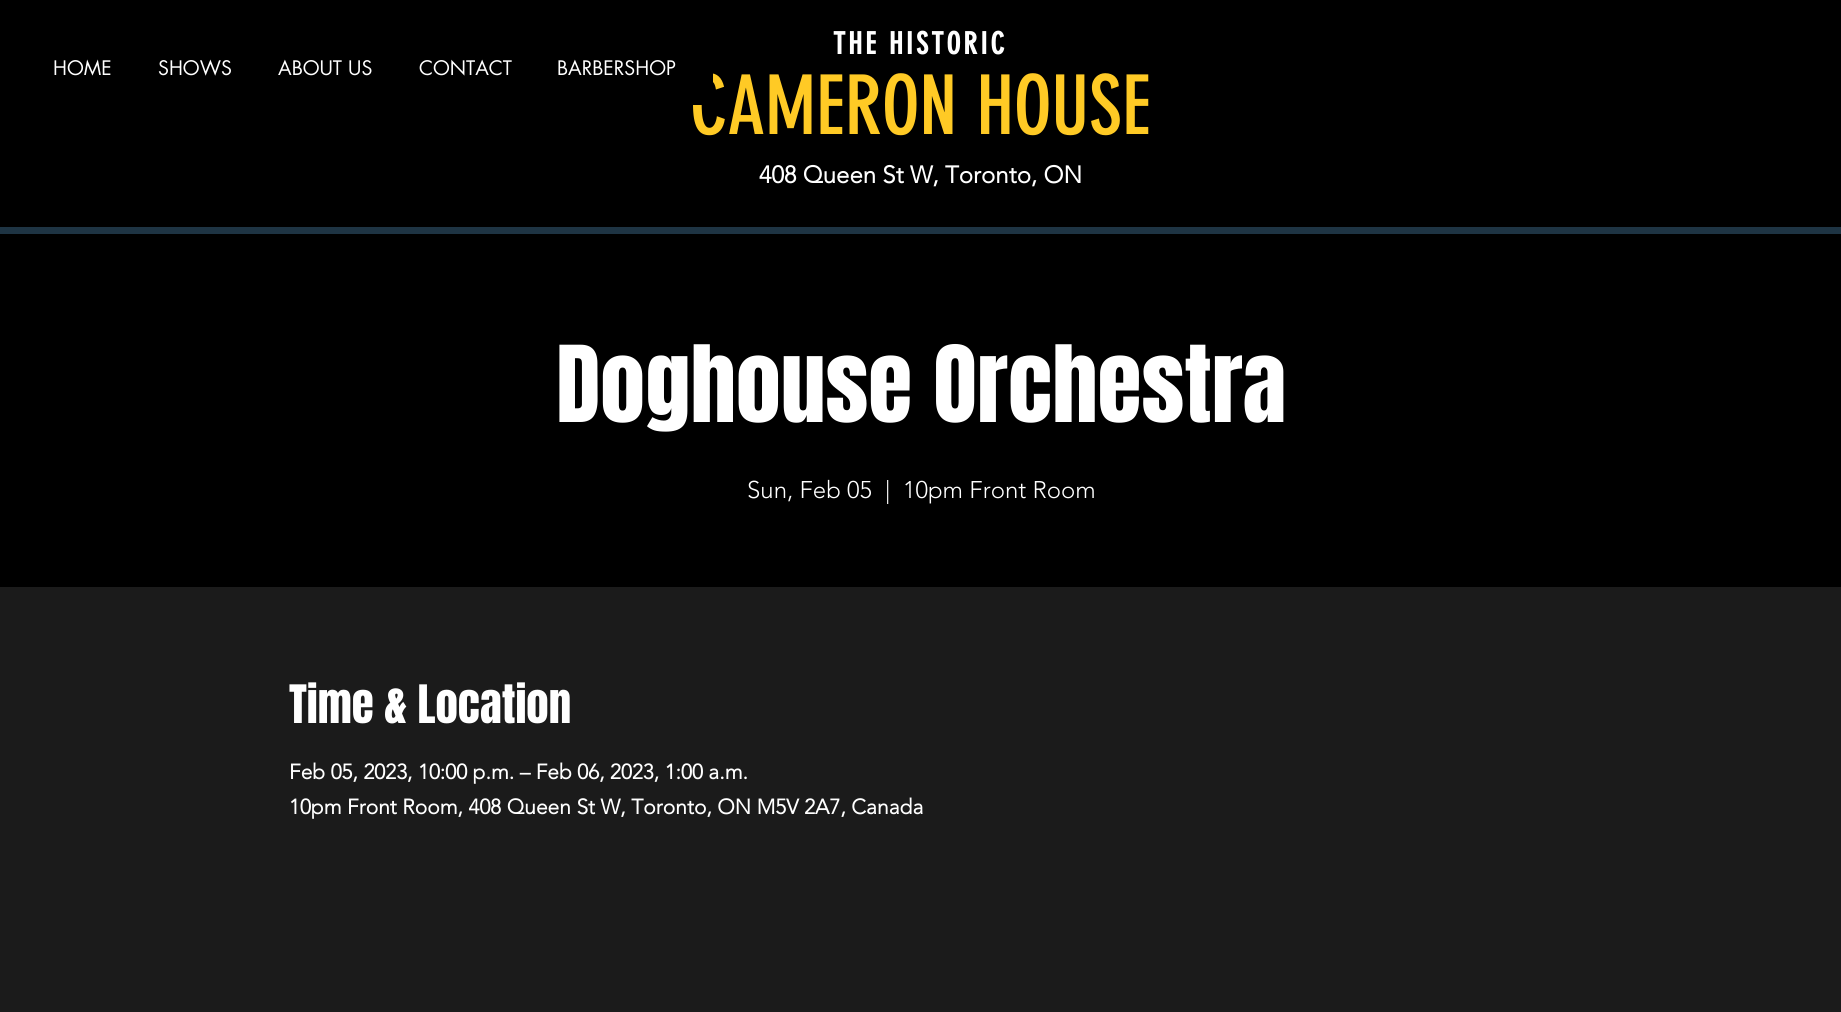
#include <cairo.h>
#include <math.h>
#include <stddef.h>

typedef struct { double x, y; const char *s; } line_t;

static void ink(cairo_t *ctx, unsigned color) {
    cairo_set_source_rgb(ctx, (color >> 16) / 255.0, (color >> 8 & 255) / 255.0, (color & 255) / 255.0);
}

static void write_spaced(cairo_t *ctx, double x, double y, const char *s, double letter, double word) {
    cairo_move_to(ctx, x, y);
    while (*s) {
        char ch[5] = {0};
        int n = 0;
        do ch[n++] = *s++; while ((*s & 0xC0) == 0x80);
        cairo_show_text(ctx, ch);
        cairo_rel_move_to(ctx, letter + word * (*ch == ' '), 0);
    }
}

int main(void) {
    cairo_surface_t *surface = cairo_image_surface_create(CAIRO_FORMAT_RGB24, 1841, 1012);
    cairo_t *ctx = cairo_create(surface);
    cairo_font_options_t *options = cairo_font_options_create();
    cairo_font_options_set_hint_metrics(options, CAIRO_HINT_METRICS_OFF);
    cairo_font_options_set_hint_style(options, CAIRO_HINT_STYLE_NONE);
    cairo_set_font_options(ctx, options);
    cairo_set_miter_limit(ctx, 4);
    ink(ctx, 0x000000);
    cairo_paint(ctx);
    cairo_select_font_face(ctx, "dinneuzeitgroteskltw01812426", CAIRO_FONT_SLANT_NORMAL, CAIRO_FONT_WEIGHT_NORMAL);
    cairo_set_font_size(ctx, 81);
    ink(ctx, 0xFFCA25);
    cairo_move_to(ctx, 690, 134);
    cairo_show_text(ctx, "CAMERON HOUSE");
    ink(ctx, 0x000000);
    cairo_rectangle(ctx, 693, 73, 20, 32);
    cairo_fill(ctx);
    cairo_select_font_face(ctx, "futura", CAIRO_FONT_SLANT_NORMAL, CAIRO_FONT_WEIGHT_NORMAL);
    cairo_set_font_size(ctx, 19.5);
    ink(ctx, 0xFFFFFF);
    {
        static const line_t items[] = {
            {53, 75, "HOME"},
            {158, 75, "SHOWS"},
            {278, 75, "ABOUT US"},
            {419, 75, "CONTACT"},
            {557, 75, "BARBERSHOP"},
        };
        for (size_t i = 0; i < sizeof items / sizeof *items; i++) {
            cairo_move_to(ctx, items[i].x, items[i].y);
            cairo_show_text(ctx, items[i].s);
        }
    }
    cairo_select_font_face(ctx, "dinneuzeitgroteskltw01812426", CAIRO_FONT_SLANT_NORMAL, CAIRO_FONT_WEIGHT_BOLD);
    cairo_set_font_size(ctx, 30);
    write_spaced(ctx, 833, 54, "THE HISTORIC", 3, 0);
    cairo_select_font_face(ctx, "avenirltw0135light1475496", CAIRO_FONT_SLANT_NORMAL, CAIRO_FONT_WEIGHT_BOLD);
    cairo_set_font_size(ctx, 24);
    cairo_move_to(ctx, 759, 183);
    cairo_show_text(ctx, "408 Queen St W, Toronto, ON");
    ink(ctx, 0x1E3443);
    cairo_rectangle(ctx, 0, 227, 1841, 7);
    cairo_fill(ctx);
    cairo_select_font_face(ctx, "Anton", CAIRO_FONT_SLANT_NORMAL, CAIRO_FONT_WEIGHT_NORMAL);
    cairo_set_font_size(ctx, 90);
    ink(ctx, 0xFFFFFF);
    cairo_move_to(ctx, 556, 422);
    cairo_show_text(ctx, "Doghouse Orchestra");
    cairo_select_font_face(ctx, "avenirltw0135light1475496 Light", CAIRO_FONT_SLANT_NORMAL, CAIRO_FONT_WEIGHT_NORMAL);
    cairo_set_font_size(ctx, 24);
    {
        static const line_t items[] = {
            {747, 498, "Sun, Feb 05"},
            {885, 498, "|"},
            {903, 498, "10pm Front Room"},
        };
        for (size_t i = 0; i < sizeof items / sizeof *items; i++) {
            cairo_move_to(ctx, items[i].x, items[i].y);
            cairo_show_text(ctx, items[i].s);
        }
    }
    ink(ctx, 0x1B1B1B);
    cairo_rectangle(ctx, 0, 587, 1841, 425);
    cairo_fill(ctx);
    cairo_select_font_face(ctx, "Anton", CAIRO_FONT_SLANT_NORMAL, CAIRO_FONT_WEIGHT_NORMAL);
    cairo_set_font_size(ctx, 45);
    ink(ctx, 0xFFFFFF);
    cairo_move_to(ctx, 289, 723);
    cairo_show_text(ctx, "Time & Location");
    cairo_select_font_face(ctx, "avenirltw0135light1475496", CAIRO_FONT_SLANT_NORMAL, CAIRO_FONT_WEIGHT_BOLD);
    cairo_set_font_size(ctx, 21);
    cairo_move_to(ctx, 289, 779);
    cairo_show_text(ctx, "Feb 05, 2023, 10:00 p.m. – Feb 06, 2023, 1:00 a.m.");
    cairo_move_to(ctx, 289, 814);
    cairo_show_text(ctx, "10pm Front Room, 408 Queen St W, Toronto, ON M5V 2A7, Canada");
    cairo_surface_write_to_png(surface, "image.png");
    cairo_font_options_destroy(options);
    cairo_destroy(ctx);
    cairo_surface_destroy(surface);
    return 0;
}
